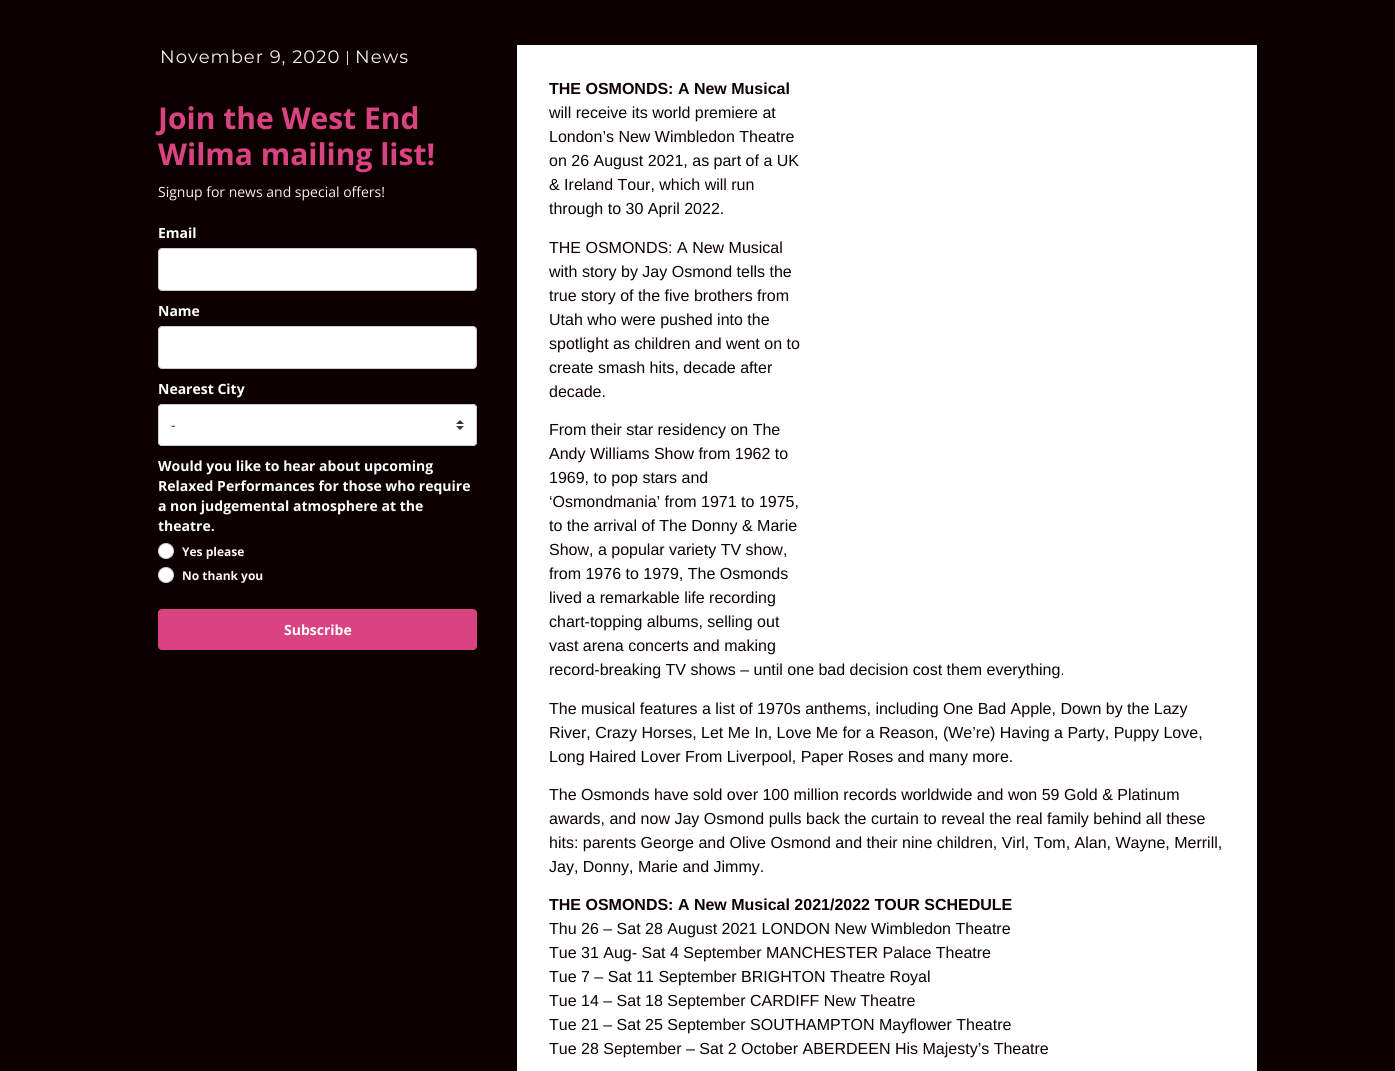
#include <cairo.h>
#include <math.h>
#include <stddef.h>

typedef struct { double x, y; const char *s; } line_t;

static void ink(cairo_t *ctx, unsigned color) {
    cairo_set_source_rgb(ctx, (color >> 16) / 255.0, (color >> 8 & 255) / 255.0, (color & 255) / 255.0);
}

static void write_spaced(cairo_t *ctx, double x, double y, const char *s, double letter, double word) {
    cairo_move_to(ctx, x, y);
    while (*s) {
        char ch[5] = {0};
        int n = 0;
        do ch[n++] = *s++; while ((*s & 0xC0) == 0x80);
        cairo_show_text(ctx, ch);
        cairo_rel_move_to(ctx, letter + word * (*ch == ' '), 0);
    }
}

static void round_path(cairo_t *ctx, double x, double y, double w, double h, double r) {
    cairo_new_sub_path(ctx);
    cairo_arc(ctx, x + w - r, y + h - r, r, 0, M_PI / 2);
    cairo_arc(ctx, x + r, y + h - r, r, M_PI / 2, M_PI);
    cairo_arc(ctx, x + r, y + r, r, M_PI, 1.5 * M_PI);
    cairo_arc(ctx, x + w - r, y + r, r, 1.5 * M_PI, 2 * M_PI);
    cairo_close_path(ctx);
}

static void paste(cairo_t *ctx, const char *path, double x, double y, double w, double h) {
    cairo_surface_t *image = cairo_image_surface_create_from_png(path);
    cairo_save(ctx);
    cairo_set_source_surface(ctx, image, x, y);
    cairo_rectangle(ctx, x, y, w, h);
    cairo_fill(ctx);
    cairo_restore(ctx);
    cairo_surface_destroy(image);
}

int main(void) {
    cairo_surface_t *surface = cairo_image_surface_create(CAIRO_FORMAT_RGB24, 1395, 1071);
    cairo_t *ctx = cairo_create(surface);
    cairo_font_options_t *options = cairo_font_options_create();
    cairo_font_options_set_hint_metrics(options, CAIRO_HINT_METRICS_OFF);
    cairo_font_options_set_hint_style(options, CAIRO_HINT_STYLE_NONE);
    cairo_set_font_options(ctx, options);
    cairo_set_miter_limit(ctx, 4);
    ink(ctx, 0x0C0000);
    cairo_paint(ctx);
    cairo_select_font_face(ctx, "Montserrat", CAIRO_FONT_SLANT_NORMAL, CAIRO_FONT_WEIGHT_NORMAL);
    cairo_set_font_size(ctx, 18);
    ink(ctx, 0xF0F0F0);
    write_spaced(ctx, 160, 63, "November 9, 2020", 1, 0);
    ink(ctx, 0xDDDDDD);
    cairo_rectangle(ctx, 347, 51, 1, 14);
    cairo_fill(ctx);
    ink(ctx, 0xF0F0F0);
    write_spaced(ctx, 355, 63, "News", 1, 0);
    cairo_select_font_face(ctx, "Open Sans", CAIRO_FONT_SLANT_NORMAL, CAIRO_FONT_WEIGHT_BOLD);
    cairo_set_font_size(ctx, 30);
    ink(ctx, 0xD94381);
    cairo_move_to(ctx, 158, 129);
    cairo_show_text(ctx, "Join the West End");
    cairo_move_to(ctx, 158, 165);
    cairo_show_text(ctx, "Wilma mailing list!");
    cairo_select_font_face(ctx, "Open Sans", CAIRO_FONT_SLANT_NORMAL, CAIRO_FONT_WEIGHT_NORMAL);
    cairo_set_font_size(ctx, 14);
    ink(ctx, 0xFAF0F0);
    cairo_move_to(ctx, 158, 197);
    cairo_show_text(ctx, "Signup for news and special offers!");
    cairo_select_font_face(ctx, "Open Sans", CAIRO_FONT_SLANT_NORMAL, CAIRO_FONT_WEIGHT_BOLD);
    ink(ctx, 0xFFFFFF);
    cairo_move_to(ctx, 158, 238);
    cairo_show_text(ctx, "Email");
    round_path(ctx, 158.5, 248.5, 318, 42, 3.5);
    cairo_fill_preserve(ctx);
    ink(ctx, 0xCCCCCC);
    cairo_set_line_width(ctx, 1);
    cairo_stroke(ctx);
    ink(ctx, 0xFFFFFF);
    cairo_move_to(ctx, 158, 316);
    cairo_show_text(ctx, "Name");
    round_path(ctx, 158.5, 326.5, 318, 42, 3.5);
    cairo_fill_preserve(ctx);
    ink(ctx, 0xCCCCCC);
    cairo_stroke(ctx);
    ink(ctx, 0xFFFFFF);
    cairo_move_to(ctx, 158, 394);
    cairo_show_text(ctx, "Nearest City");
    round_path(ctx, 158, 404, 319, 42, 4);
    cairo_fill(ctx);
    paste(ctx, "media/1.png", 456, 420, 8, 10);
    round_path(ctx, 158.5, 404.5, 318, 41, 3.5);
    ink(ctx, 0xCCCCCC);
    cairo_stroke(ctx);
    cairo_select_font_face(ctx, "Open Sans", CAIRO_FONT_SLANT_NORMAL, CAIRO_FONT_WEIGHT_NORMAL);
    ink(ctx, 0x333333);
    cairo_move_to(ctx, 171, 430);
    cairo_show_text(ctx, "-");
    cairo_select_font_face(ctx, "Open Sans", CAIRO_FONT_SLANT_NORMAL, CAIRO_FONT_WEIGHT_BOLD);
    ink(ctx, 0xFFFFFF);
    {
        static const line_t items[] = {
            {158, 471, "Would you like to hear about upcoming"},
            {158, 491, "Relaxed Performances for those who require"},
            {158, 511, "a non judgemental atmosphere at the"},
            {158, 531, "theatre."},
        };
        for (size_t i = 0; i < sizeof items / sizeof *items; i++) {
            cairo_move_to(ctx, items[i].x, items[i].y);
            cairo_show_text(ctx, items[i].s);
        }
    }
    cairo_new_path(ctx);
    cairo_arc(ctx, 166, 551, 7.5, 0, 2 * M_PI);
    cairo_fill_preserve(ctx);
    ink(ctx, 0xCCCCCC);
    cairo_stroke(ctx);
    cairo_set_font_size(ctx, 12);
    ink(ctx, 0xFFF7F7);
    cairo_move_to(ctx, 182, 556);
    cairo_show_text(ctx, "Yes please");
    ink(ctx, 0xFFFFFF);
    cairo_new_path(ctx);
    cairo_arc(ctx, 166, 575, 7.5, 0, 2 * M_PI);
    cairo_fill_preserve(ctx);
    ink(ctx, 0xCCCCCC);
    cairo_stroke(ctx);
    ink(ctx, 0xFFF7F7);
    cairo_move_to(ctx, 182, 580);
    cairo_show_text(ctx, "No thank you");
    ink(ctx, 0xD94381);
    round_path(ctx, 158, 609, 319, 41, 4);
    cairo_fill(ctx);
    cairo_set_font_size(ctx, 14);
    ink(ctx, 0xFFFFFF);
    cairo_move_to(ctx, 284, 635);
    cairo_show_text(ctx, "Subscribe");
    cairo_rectangle(ctx, 517, 45, 740, 1026);
    cairo_fill(ctx);
    cairo_select_font_face(ctx, "Liberation Sans", CAIRO_FONT_SLANT_NORMAL, CAIRO_FONT_WEIGHT_BOLD);
    cairo_set_font_size(ctx, 16);
    ink(ctx, 0x0C0000);
    cairo_move_to(ctx, 549, 94);
    cairo_show_text(ctx, "THE OSMONDS: A New Musical");
    cairo_select_font_face(ctx, "Liberation Sans", CAIRO_FONT_SLANT_NORMAL, CAIRO_FONT_WEIGHT_NORMAL);
    {
        static const line_t items[] = {
            {549, 118, "will receive its world premiere at"},
            {549, 142, "London’s New Wimbledon Theatre"},
            {549, 166, "on 26 August 2021, as part of a UK"},
            {549, 190, "& Ireland Tour, which will run"},
            {549, 214, "through to 30 April 2022."},
            {549, 253, "THE OSMONDS: A New Musical"},
            {549, 277, "with story by Jay Osmond tells the"},
            {549, 301, "true story of the five brothers from"},
            {549, 325, "Utah who were pushed into the"},
            {549, 349, "spotlight as children and went on to"},
            {549, 373, "create smash hits, decade after"},
            {549, 397, "decade."},
            {549, 435, "From their star residency on The"},
            {549, 459, "Andy Williams Show from 1962 to"},
            {549, 483, "1969, to pop stars and"},
            {549, 507, "‘Osmondmania’ from 1971 to 1975,"},
            {549, 531, "to the arrival of The Donny & Marie"},
            {549, 555, "Show, a popular variety TV show,"},
            {549, 579, "from 1976 to 1979, The Osmonds"},
            {549, 603, "lived a remarkable life recording"},
            {549, 627, "chart-topping albums, selling out"},
            {549, 651, "vast arena concerts and making"},
            {549, 675, "record-breaking TV shows – until one bad decision cost them everything."},
            {549, 714, "The musical features a list of 1970s anthems, including One Bad Apple, Down by the Lazy"},
            {549, 738, "River, Crazy Horses, Let Me In, Love Me for a Reason, (We’re) Having a Party, Puppy Love,"},
            {549, 762, "Long Haired Lover From Liverpool, Paper Roses and many more."},
            {549, 800, "The Osmonds have sold over 100 million records worldwide and won 59 Gold & Platinum"},
            {549, 824, "awards, and now Jay Osmond pulls back the curtain to reveal the real family behind all these"},
            {549, 848, "hits: parents George and Olive Osmond and their nine children, Virl, Tom, Alan, Wayne, Merrill,"},
            {549, 872, "Jay, Donny, Marie and Jimmy."},
        };
        for (size_t i = 0; i < sizeof items / sizeof *items; i++) {
            cairo_move_to(ctx, items[i].x, items[i].y);
            cairo_show_text(ctx, items[i].s);
        }
    }
    cairo_select_font_face(ctx, "Liberation Sans", CAIRO_FONT_SLANT_NORMAL, CAIRO_FONT_WEIGHT_BOLD);
    cairo_move_to(ctx, 549, 910);
    cairo_show_text(ctx, "THE OSMONDS: A New Musical 2021/2022 TOUR SCHEDULE");
    cairo_select_font_face(ctx, "Liberation Sans", CAIRO_FONT_SLANT_NORMAL, CAIRO_FONT_WEIGHT_NORMAL);
    {
        static const line_t items[] = {
            {549, 934, "Thu 26 – Sat 28 August 2021 LONDON New Wimbledon Theatre"},
            {549, 958, "Tue 31 Aug- Sat 4 September MANCHESTER Palace Theatre"},
            {549, 982, "Tue 7 – Sat 11 September BRIGHTON Theatre Royal"},
            {549, 1006, "Tue 14 – Sat 18 September CARDIFF New Theatre"},
            {549, 1030, "Tue 21 – Sat 25 September SOUTHAMPTON Mayflower Theatre"},
            {549, 1054, "Tue 28 September – Sat 2 October ABERDEEN His Majesty’s Theatre"},
        };
        for (size_t i = 0; i < sizeof items / sizeof *items; i++) {
            cairo_move_to(ctx, items[i].x, items[i].y);
            cairo_show_text(ctx, items[i].s);
        }
    }
    cairo_surface_write_to_png(surface, "image.png");
    cairo_font_options_destroy(options);
    cairo_destroy(ctx);
    cairo_surface_destroy(surface);
    return 0;
}
